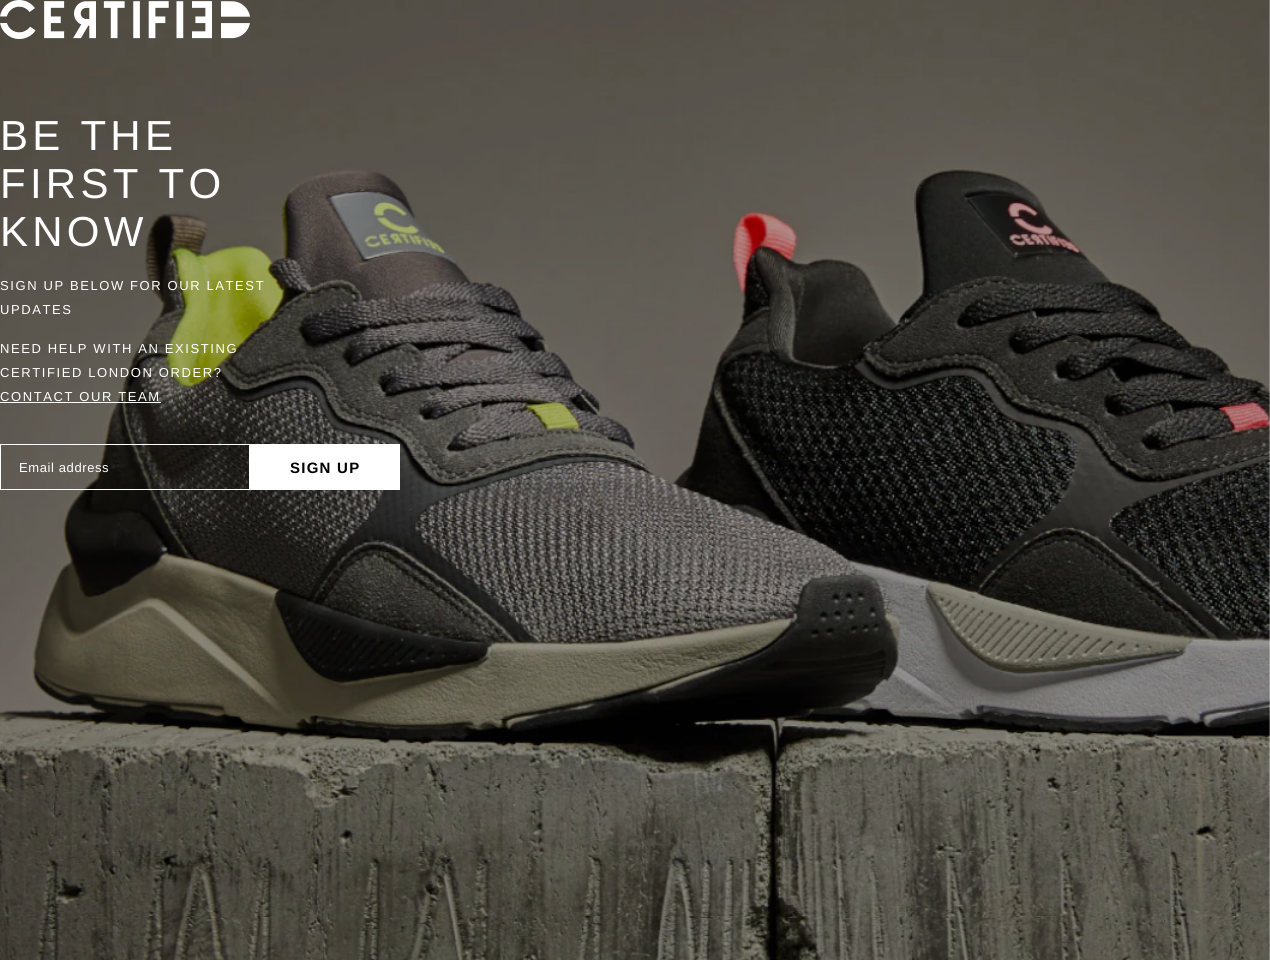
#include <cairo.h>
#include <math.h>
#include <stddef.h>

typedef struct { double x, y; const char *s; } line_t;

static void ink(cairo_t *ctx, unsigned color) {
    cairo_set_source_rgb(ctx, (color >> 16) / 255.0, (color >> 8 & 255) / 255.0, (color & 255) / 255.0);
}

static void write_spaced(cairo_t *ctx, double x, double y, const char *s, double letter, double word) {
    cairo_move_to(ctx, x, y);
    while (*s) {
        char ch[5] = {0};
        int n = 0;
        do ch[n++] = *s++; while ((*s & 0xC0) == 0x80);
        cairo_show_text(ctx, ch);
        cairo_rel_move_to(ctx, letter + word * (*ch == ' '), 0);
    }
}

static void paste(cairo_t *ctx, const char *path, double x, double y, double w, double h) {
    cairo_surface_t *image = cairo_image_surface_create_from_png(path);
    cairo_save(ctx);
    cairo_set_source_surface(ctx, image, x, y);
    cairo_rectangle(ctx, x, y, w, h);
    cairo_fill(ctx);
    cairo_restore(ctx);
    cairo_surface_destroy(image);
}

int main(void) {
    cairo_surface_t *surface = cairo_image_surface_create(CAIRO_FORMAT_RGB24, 1270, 960);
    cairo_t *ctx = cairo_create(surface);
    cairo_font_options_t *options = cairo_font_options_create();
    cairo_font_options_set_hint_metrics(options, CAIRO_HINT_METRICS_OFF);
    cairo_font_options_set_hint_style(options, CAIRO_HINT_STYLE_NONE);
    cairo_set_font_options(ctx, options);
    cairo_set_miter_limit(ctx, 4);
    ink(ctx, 0xFFFFFF);
    cairo_paint(ctx);
    paste(ctx, "media/1.png", 0, 0, 1270, 960);
    paste(ctx, "media/2.png", 0, 0, 250, 39);
    cairo_select_font_face(ctx, "Liberation Sans", CAIRO_FONT_SLANT_NORMAL, CAIRO_FONT_WEIGHT_NORMAL);
    cairo_set_font_size(ctx, 42);
    ink(ctx, 0xFFFFFF);
    {
        static const line_t items[] = {
            {0, 150, "BE THE"},
            {0, 198, "FIRST TO"},
            {0, 246, "KNOW"},
        };
        for (size_t i = 0; i < sizeof items / sizeof *items; i++) {
            write_spaced(ctx, items[i].x, items[i].y, items[i].s, 4.25, 0);
        }
    }
    cairo_set_font_size(ctx, 13);
    {
        static const line_t items[] = {
            {0, 290, "SIGN UP BELOW FOR OUR LATEST"},
            {0, 314, "UPDATES"},
            {0, 353, "NEED HELP WITH AN EXISTING"},
            {0, 377, "CERTIFIED LONDON ORDER?"},
            {0, 401, "CONTACT OUR TEAM"},
        };
        for (size_t i = 0; i < sizeof items / sizeof *items; i++) {
            write_spaced(ctx, items[i].x, items[i].y, items[i].s, 1.6, 0);
        }
    }
    cairo_rectangle(ctx, 0, 402, 161, 1);
    cairo_fill(ctx);
    cairo_rectangle(ctx, 0.5, 444.5, 249, 45);
    cairo_set_line_width(ctx, 1);
    cairo_stroke(ctx);
    write_spaced(ctx, 19, 472, "Email address", 0.6, 0);
    cairo_rectangle(ctx, 250, 444, 150, 46);
    cairo_fill(ctx);
    cairo_select_font_face(ctx, "Liberation Sans", CAIRO_FONT_SLANT_NORMAL, CAIRO_FONT_WEIGHT_BOLD);
    cairo_set_font_size(ctx, 15);
    ink(ctx, 0x000000);
    write_spaced(ctx, 290, 473, "SIGN UP", 1.25, 0);
    cairo_surface_write_to_png(surface, "image.png");
    cairo_font_options_destroy(options);
    cairo_destroy(ctx);
    cairo_surface_destroy(surface);
    return 0;
}
